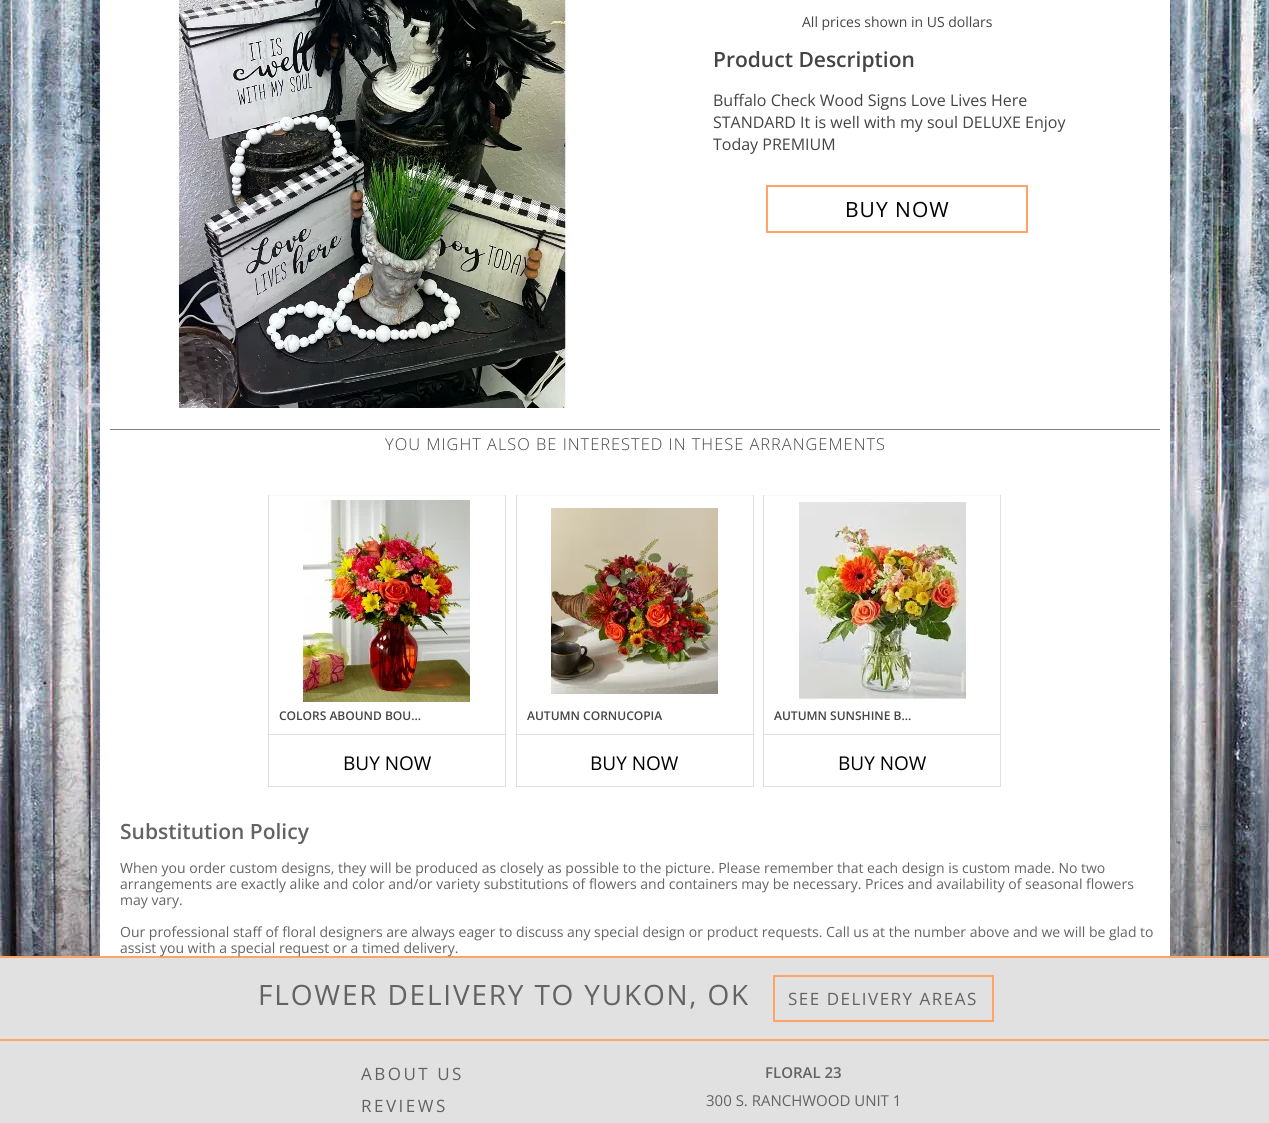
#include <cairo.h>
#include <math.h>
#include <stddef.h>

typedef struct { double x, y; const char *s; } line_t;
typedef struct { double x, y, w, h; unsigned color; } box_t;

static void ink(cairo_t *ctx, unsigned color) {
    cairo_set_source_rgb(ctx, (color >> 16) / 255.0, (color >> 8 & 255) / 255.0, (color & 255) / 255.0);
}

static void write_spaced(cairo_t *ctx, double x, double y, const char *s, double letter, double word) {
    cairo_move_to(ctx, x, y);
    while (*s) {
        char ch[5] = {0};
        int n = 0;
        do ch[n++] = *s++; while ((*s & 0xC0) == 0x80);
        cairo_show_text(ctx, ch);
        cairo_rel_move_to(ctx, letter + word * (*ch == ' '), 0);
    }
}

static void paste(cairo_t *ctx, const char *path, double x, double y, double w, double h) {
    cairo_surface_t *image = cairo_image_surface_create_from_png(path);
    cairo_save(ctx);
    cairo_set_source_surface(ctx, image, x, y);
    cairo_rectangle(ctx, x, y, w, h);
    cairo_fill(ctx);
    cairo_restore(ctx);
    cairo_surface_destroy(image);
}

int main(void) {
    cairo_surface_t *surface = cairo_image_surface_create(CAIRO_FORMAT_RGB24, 1269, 1123);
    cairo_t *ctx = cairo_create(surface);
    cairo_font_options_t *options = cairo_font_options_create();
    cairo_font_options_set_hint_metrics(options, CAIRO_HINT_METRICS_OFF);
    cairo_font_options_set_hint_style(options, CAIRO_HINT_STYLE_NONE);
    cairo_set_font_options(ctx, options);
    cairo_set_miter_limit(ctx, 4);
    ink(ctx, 0xFFFFFF);
    cairo_paint(ctx);
    paste(ctx, "media/1.png", 0, 0, 1269, 956);
    ink(ctx, 0xFFFFFF);
    cairo_rectangle(ctx, 100, 0, 1070, 956);
    cairo_fill(ctx);
    paste(ctx, "media/2.png", 176, 0, 393, 408);
    cairo_select_font_face(ctx, "Open Sans", CAIRO_FONT_SLANT_NORMAL, CAIRO_FONT_WEIGHT_NORMAL);
    cairo_set_font_size(ctx, 14);
    ink(ctx, 0x444444);
    cairo_move_to(ctx, 802, 27);
    cairo_show_text(ctx, "All prices shown in US dollars");
    cairo_select_font_face(ctx, "Open Sans SemiBold", CAIRO_FONT_SLANT_NORMAL, CAIRO_FONT_WEIGHT_NORMAL);
    cairo_set_font_size(ctx, 21);
    cairo_move_to(ctx, 713, 67);
    cairo_show_text(ctx, "Product Description");
    cairo_select_font_face(ctx, "Open Sans", CAIRO_FONT_SLANT_NORMAL, CAIRO_FONT_WEIGHT_NORMAL);
    cairo_set_font_size(ctx, 16);
    {
        static const line_t items[] = {
            {713, 106, "Buffalo Check Wood Signs Love Lives Here"},
            {713, 128, "STANDARD It is well with my soul DELUXE Enjoy"},
            {713, 150, "Today PREMIUM"},
        };
        for (size_t i = 0; i < sizeof items / sizeof *items; i++) {
            cairo_move_to(ctx, items[i].x, items[i].y);
            cairo_show_text(ctx, items[i].s);
        }
    }
    cairo_rectangle(ctx, 767, 186, 260, 46);
    ink(ctx, 0xFFA366);
    cairo_stroke(ctx);
    cairo_set_font_size(ctx, 21);
    ink(ctx, 0x000000);
    write_spaced(ctx, 845, 217, "BUY NOW", 1, 0);
    ink(ctx, 0x808080);
    cairo_rectangle(ctx, 110, 429, 1050, 1);
    cairo_fill(ctx);
    cairo_select_font_face(ctx, "Open Sans Light", CAIRO_FONT_SLANT_NORMAL, CAIRO_FONT_WEIGHT_NORMAL);
    cairo_set_font_size(ctx, 16.4);
    ink(ctx, 0x444444);
    write_spaced(ctx, 385, 450, "YOU MIGHT ALSO BE INTERESTED IN THESE ARRANGEMENTS", 1, 0);
    {
        static const box_t items[] = {
            {268, 495, 238, 1, 0xF9F9F9},
            {505, 495, 1, 292, 0xE2DEDD},
            {268, 786, 238, 1, 0xE2DEDD},
            {268, 495, 1, 292, 0xE2DEDD},
        };
        for (size_t i = 0; i < sizeof items / sizeof *items; i++) {
            ink(ctx, items[i].color);
            cairo_rectangle(ctx, items[i].x, items[i].y, items[i].w, items[i].h);
            cairo_fill(ctx);
        }
    }
    paste(ctx, "media/3.png", 303, 500, 167, 202);
    cairo_select_font_face(ctx, "Open Sans SemiBold", CAIRO_FONT_SLANT_NORMAL, CAIRO_FONT_WEIGHT_NORMAL);
    cairo_set_font_size(ctx, 12);
    ink(ctx, 0x444444);
    cairo_move_to(ctx, 279, 720);
    cairo_show_text(ctx, "COLORS ABOUND BOU…");
    ink(ctx, 0xE2DEDD);
    cairo_rectangle(ctx, 269, 734, 236, 1);
    cairo_fill(ctx);
    cairo_select_font_face(ctx, "Open Sans", CAIRO_FONT_SLANT_NORMAL, CAIRO_FONT_WEIGHT_NORMAL);
    cairo_set_font_size(ctx, 19);
    ink(ctx, 0x000000);
    cairo_move_to(ctx, 343, 770);
    cairo_show_text(ctx, "BUY NOW");
    {
        static const box_t items[] = {
            {516, 495, 238, 1, 0xF9F9F9},
            {753, 495, 1, 292, 0xE2DEDD},
            {516, 786, 238, 1, 0xE2DEDD},
            {516, 495, 1, 292, 0xE2DEDD},
        };
        for (size_t i = 0; i < sizeof items / sizeof *items; i++) {
            ink(ctx, items[i].color);
            cairo_rectangle(ctx, items[i].x, items[i].y, items[i].w, items[i].h);
            cairo_fill(ctx);
        }
    }
    paste(ctx, "media/4.png", 551, 507, 167, 189);
    cairo_select_font_face(ctx, "Open Sans SemiBold", CAIRO_FONT_SLANT_NORMAL, CAIRO_FONT_WEIGHT_NORMAL);
    cairo_set_font_size(ctx, 12);
    ink(ctx, 0x444444);
    cairo_move_to(ctx, 527, 720);
    cairo_show_text(ctx, "AUTUMN CORNUCOPIA");
    ink(ctx, 0xE2DEDD);
    cairo_rectangle(ctx, 517, 734, 236, 1);
    cairo_fill(ctx);
    cairo_select_font_face(ctx, "Open Sans", CAIRO_FONT_SLANT_NORMAL, CAIRO_FONT_WEIGHT_NORMAL);
    cairo_set_font_size(ctx, 19);
    ink(ctx, 0x000000);
    cairo_move_to(ctx, 590, 770);
    cairo_show_text(ctx, "BUY NOW");
    {
        static const box_t items[] = {
            {763, 495, 238, 1, 0xF9F9F9},
            {1000, 495, 1, 292, 0xE2DEDD},
            {763, 786, 238, 1, 0xE2DEDD},
            {763, 495, 1, 292, 0xE2DEDD},
        };
        for (size_t i = 0; i < sizeof items / sizeof *items; i++) {
            ink(ctx, items[i].color);
            cairo_rectangle(ctx, items[i].x, items[i].y, items[i].w, items[i].h);
            cairo_fill(ctx);
        }
    }
    paste(ctx, "media/5.png", 799, 502, 167, 198);
    cairo_select_font_face(ctx, "Open Sans SemiBold", CAIRO_FONT_SLANT_NORMAL, CAIRO_FONT_WEIGHT_NORMAL);
    cairo_set_font_size(ctx, 12);
    ink(ctx, 0x444444);
    cairo_move_to(ctx, 774, 720);
    cairo_show_text(ctx, "AUTUMN SUNSHINE B…");
    ink(ctx, 0xE2DEDD);
    cairo_rectangle(ctx, 764, 734, 236, 1);
    cairo_fill(ctx);
    cairo_select_font_face(ctx, "Open Sans", CAIRO_FONT_SLANT_NORMAL, CAIRO_FONT_WEIGHT_NORMAL);
    cairo_set_font_size(ctx, 19);
    ink(ctx, 0x000000);
    cairo_move_to(ctx, 838, 770);
    cairo_show_text(ctx, "BUY NOW");
    cairo_select_font_face(ctx, "Open Sans SemiBold", CAIRO_FONT_SLANT_NORMAL, CAIRO_FONT_WEIGHT_NORMAL);
    cairo_set_font_size(ctx, 21);
    ink(ctx, 0x636363);
    cairo_move_to(ctx, 120, 839);
    cairo_show_text(ctx, "Substitution Policy");
    cairo_select_font_face(ctx, "Open Sans", CAIRO_FONT_SLANT_NORMAL, CAIRO_FONT_WEIGHT_NORMAL);
    cairo_set_font_size(ctx, 14);
    {
        static const line_t items[] = {
            {120, 873, "When you order custom designs, they will be produced as closely as possible to the picture. Please remember that each design is custom made. No two"},
            {120, 889, "arrangements are exactly alike and color and/or variety substitutions of flowers and containers may be necessary. Prices and availability of seasonal flowers"},
            {120, 905, "may vary."},
            {120, 937, "Our professional staff of floral designers are always eager to discuss any special design or product requests. Call us at the number above and we will be glad to"},
        };
        for (size_t i = 0; i < sizeof items / sizeof *items; i++) {
            cairo_move_to(ctx, items[i].x, items[i].y);
            cairo_show_text(ctx, items[i].s);
        }
    }
    ink(ctx, 0xFFA366);
    cairo_rectangle(ctx, 0, 956, 1269, 2);
    cairo_fill(ctx);
    ink(ctx, 0x636363);
    cairo_move_to(ctx, 120, 953);
    cairo_show_text(ctx, "assist you with a special request or a timed delivery.");
    ink(ctx, 0xE1E1E1);
    cairo_rectangle(ctx, 0, 958, 1269, 81);
    cairo_fill(ctx);
    ink(ctx, 0xFFA366);
    cairo_rectangle(ctx, 0, 1039, 1269, 2);
    cairo_fill(ctx);
    cairo_set_font_size(ctx, 28);
    ink(ctx, 0x636363);
    write_spaced(ctx, 258, 1005, "FLOWER DELIVERY TO YUKON, OK", 1.8, 0);
    cairo_rectangle(ctx, 774, 976, 219, 45);
    ink(ctx, 0xFFA366);
    cairo_stroke(ctx);
    cairo_set_font_size(ctx, 17);
    ink(ctx, 0x636363);
    write_spaced(ctx, 788, 1005, "SEE DELIVERY AREAS", 1.5, 0);
    ink(ctx, 0xE1E1E1);
    cairo_rectangle(ctx, 0, 1041, 1269, 82);
    cairo_fill(ctx);
    ink(ctx, 0x636363);
    write_spaced(ctx, 361, 1080, "ABOUT US", 2.5, 0);
    write_spaced(ctx, 361, 1112, "REVIEWS", 2.5, 0);
    cairo_select_font_face(ctx, "Open Sans SemiBold", CAIRO_FONT_SLANT_NORMAL, CAIRO_FONT_WEIGHT_NORMAL);
    cairo_set_font_size(ctx, 15);
    cairo_move_to(ctx, 765, 1078);
    cairo_show_text(ctx, "FLORAL 23");
    cairo_select_font_face(ctx, "Open Sans", CAIRO_FONT_SLANT_NORMAL, CAIRO_FONT_WEIGHT_NORMAL);
    cairo_move_to(ctx, 706, 1106);
    cairo_show_text(ctx, "300 S. RANCHWOOD UNIT 1");
    cairo_surface_write_to_png(surface, "image.png");
    cairo_font_options_destroy(options);
    cairo_destroy(ctx);
    cairo_surface_destroy(surface);
    return 0;
}
